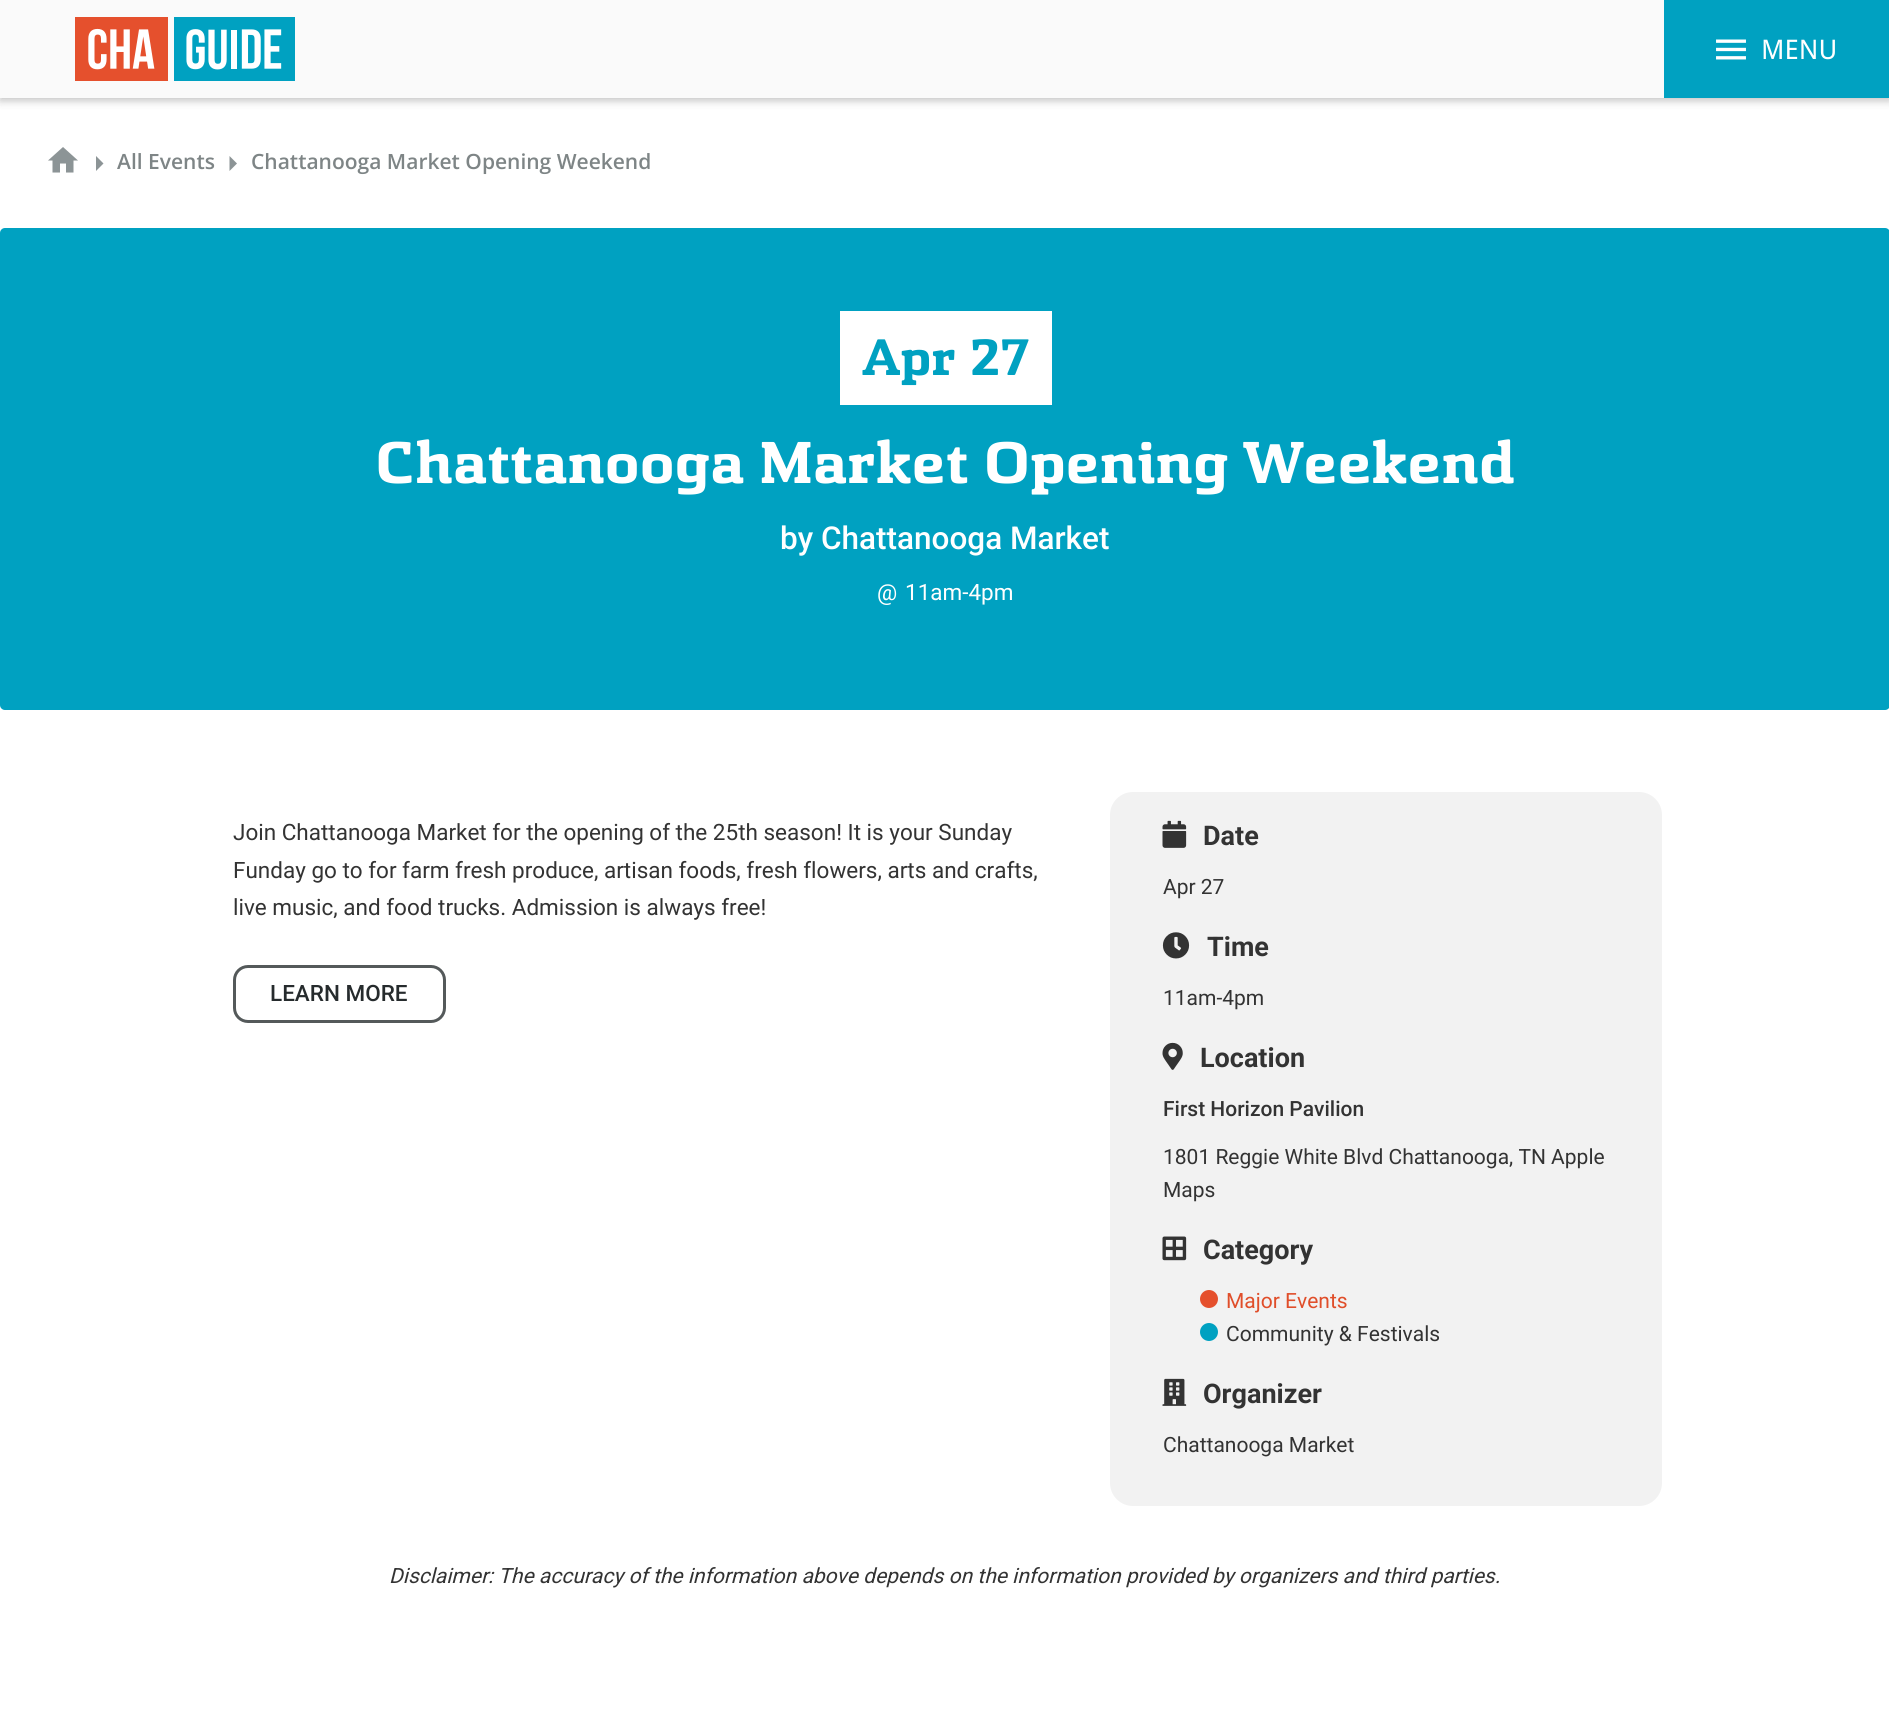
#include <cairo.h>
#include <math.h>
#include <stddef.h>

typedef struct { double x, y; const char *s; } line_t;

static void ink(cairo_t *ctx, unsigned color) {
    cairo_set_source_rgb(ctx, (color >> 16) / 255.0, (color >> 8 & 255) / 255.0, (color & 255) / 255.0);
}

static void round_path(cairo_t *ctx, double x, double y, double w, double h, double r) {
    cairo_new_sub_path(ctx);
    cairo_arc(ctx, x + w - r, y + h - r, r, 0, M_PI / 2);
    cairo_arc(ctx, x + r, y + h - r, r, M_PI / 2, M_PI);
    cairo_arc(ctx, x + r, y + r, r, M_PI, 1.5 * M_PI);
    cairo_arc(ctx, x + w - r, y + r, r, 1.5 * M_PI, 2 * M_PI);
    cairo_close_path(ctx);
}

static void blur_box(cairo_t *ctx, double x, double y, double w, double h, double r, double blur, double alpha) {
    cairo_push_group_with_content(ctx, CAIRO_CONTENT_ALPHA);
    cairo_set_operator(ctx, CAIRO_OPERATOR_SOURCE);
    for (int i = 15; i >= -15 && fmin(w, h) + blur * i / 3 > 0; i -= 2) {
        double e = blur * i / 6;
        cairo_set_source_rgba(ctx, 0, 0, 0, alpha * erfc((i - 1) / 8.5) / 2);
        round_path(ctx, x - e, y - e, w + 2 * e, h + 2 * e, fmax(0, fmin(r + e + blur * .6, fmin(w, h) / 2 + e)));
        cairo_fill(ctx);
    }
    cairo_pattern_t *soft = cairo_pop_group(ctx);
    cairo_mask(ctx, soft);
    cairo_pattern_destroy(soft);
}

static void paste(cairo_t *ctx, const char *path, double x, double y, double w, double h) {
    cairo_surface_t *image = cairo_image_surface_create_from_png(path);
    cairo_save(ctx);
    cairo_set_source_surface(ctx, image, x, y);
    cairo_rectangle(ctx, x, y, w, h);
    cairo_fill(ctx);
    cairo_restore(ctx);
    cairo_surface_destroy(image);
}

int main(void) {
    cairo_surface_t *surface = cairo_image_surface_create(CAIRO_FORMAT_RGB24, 1889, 1711);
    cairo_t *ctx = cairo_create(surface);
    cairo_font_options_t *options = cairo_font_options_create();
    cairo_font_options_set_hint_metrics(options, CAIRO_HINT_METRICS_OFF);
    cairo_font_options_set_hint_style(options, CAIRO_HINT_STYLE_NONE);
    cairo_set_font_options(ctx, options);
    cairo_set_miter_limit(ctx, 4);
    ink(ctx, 0xFFFFFF);
    cairo_paint(ctx);
    ink(ctx, 0x000000);
    blur_box(ctx, 0, 3, 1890, 98, 0, 4, 0.2);
    blur_box(ctx, 0, 0, 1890, 98, 0, 7.5, 0.05);
    ink(ctx, 0xFAFAFA);
    cairo_rectangle(ctx, 0, 0, 1664, 98);
    cairo_fill(ctx);
    paste(ctx, "media/1.png", 75, 17, 220, 64);
    ink(ctx, 0x00A1C1);
    cairo_rectangle(ctx, 1664, 0, 225, 98);
    cairo_fill(ctx);
    paste(ctx, "media/2.png", 1716, 39, 30, 21);
    cairo_select_font_face(ctx, "Droid Sans", CAIRO_FONT_SLANT_NORMAL, CAIRO_FONT_WEIGHT_NORMAL);
    cairo_set_font_size(ctx, 27);
    ink(ctx, 0xFFFFFF);
    cairo_move_to(ctx, 1761, 59);
    cairo_show_text(ctx, "MENU");
    paste(ctx, "media/3.png", 48, 147, 30, 26);
    ink(ctx, 0x8C9496);
    cairo_new_path(ctx);
    cairo_move_to(ctx, 96, 171);
    cairo_line_to(ctx, 103.5, 163.5);
    cairo_line_to(ctx, 96, 156);
    cairo_close_path(ctx);
    cairo_fill(ctx);
    cairo_select_font_face(ctx, "Open Sans SemiBold", CAIRO_FONT_SLANT_NORMAL, CAIRO_FONT_WEIGHT_NORMAL);
    cairo_set_font_size(ctx, 21);
    ink(ctx, 0x7E8586);
    cairo_move_to(ctx, 117, 169);
    cairo_show_text(ctx, "All Events");
    ink(ctx, 0x8C9496);
    cairo_new_path(ctx);
    cairo_move_to(ctx, 229.5, 171);
    cairo_line_to(ctx, 237, 163.5);
    cairo_line_to(ctx, 229.5, 156);
    cairo_close_path(ctx);
    cairo_fill(ctx);
    ink(ctx, 0x7E8586);
    cairo_move_to(ctx, 251, 169);
    cairo_show_text(ctx, "Chattanooga Market Opening Weekend");
    ink(ctx, 0x00A1C1);
    round_path(ctx, 0, 228, 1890, 482, 5);
    cairo_fill(ctx);
    ink(ctx, 0xFFFFFF);
    cairo_rectangle(ctx, 840, 311, 212, 94);
    cairo_fill(ctx);
    cairo_select_font_face(ctx, "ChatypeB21", CAIRO_FONT_SLANT_NORMAL, CAIRO_FONT_WEIGHT_BOLD);
    cairo_set_font_size(ctx, 49.5);
    ink(ctx, 0x00A1C1);
    cairo_move_to(ctx, 862, 375);
    cairo_show_text(ctx, "Apr 27");
    cairo_set_font_size(ctx, 57);
    ink(ctx, 0xFFFFFF);
    cairo_move_to(ctx, 375, 483);
    cairo_show_text(ctx, "Chattanooga Market Opening Weekend");
    cairo_select_font_face(ctx, "Roboto Medium", CAIRO_FONT_SLANT_NORMAL, CAIRO_FONT_WEIGHT_NORMAL);
    cairo_set_font_size(ctx, 31.5);
    cairo_move_to(ctx, 780, 549);
    cairo_show_text(ctx, "by");
    cairo_move_to(ctx, 821, 549);
    cairo_show_text(ctx, "Chattanooga Market");
    cairo_select_font_face(ctx, "Roboto", CAIRO_FONT_SLANT_NORMAL, CAIRO_FONT_WEIGHT_NORMAL);
    cairo_set_font_size(ctx, 22.5);
    cairo_move_to(ctx, 877, 600);
    cairo_show_text(ctx, "@");
    cairo_move_to(ctx, 905, 600);
    cairo_show_text(ctx, "11am-4pm");
    ink(ctx, 0x333333);
    {
        static const line_t items[] = {
            {233, 840, "Join Chattanooga Market for the opening of the 25th season! It is your Sunday"},
            {233, 878, "Funday go to for farm fresh produce, artisan foods, fresh flowers, arts and crafts,"},
            {233, 915, "live music, and food trucks. Admission is always free!"},
        };
        for (size_t i = 0; i < sizeof items / sizeof *items; i++) {
            cairo_move_to(ctx, items[i].x, items[i].y);
            cairo_show_text(ctx, items[i].s);
        }
    }
    round_path(ctx, 234.5, 966.5, 210, 55, 13.5);
    ink(ctx, 0x54595A);
    cairo_set_line_width(ctx, 3);
    cairo_stroke(ctx);
    cairo_select_font_face(ctx, "Roboto Medium", CAIRO_FONT_SLANT_NORMAL, CAIRO_FONT_WEIGHT_NORMAL);
    ink(ctx, 0x262B2D);
    cairo_move_to(ctx, 270, 1001);
    cairo_show_text(ctx, "LEARN MORE");
    ink(ctx, 0xF2F2F2);
    round_path(ctx, 1110, 792, 552, 714, 23);
    cairo_fill(ctx);
    paste(ctx, "media/4.png", 1162, 820, 25, 28);
    cairo_select_font_face(ctx, "Roboto", CAIRO_FONT_SLANT_NORMAL, CAIRO_FONT_WEIGHT_BOLD);
    cairo_set_font_size(ctx, 27);
    ink(ctx, 0x333333);
    cairo_move_to(ctx, 1203, 845);
    cairo_show_text(ctx, "Date");
    cairo_select_font_face(ctx, "Roboto", CAIRO_FONT_SLANT_NORMAL, CAIRO_FONT_WEIGHT_NORMAL);
    cairo_set_font_size(ctx, 21);
    cairo_move_to(ctx, 1163, 894);
    cairo_show_text(ctx, "Apr 27");
    paste(ctx, "media/5.png", 1162, 932, 28, 27);
    cairo_select_font_face(ctx, "Roboto", CAIRO_FONT_SLANT_NORMAL, CAIRO_FONT_WEIGHT_BOLD);
    cairo_set_font_size(ctx, 27);
    cairo_move_to(ctx, 1207, 956);
    cairo_show_text(ctx, "Time");
    cairo_select_font_face(ctx, "Roboto", CAIRO_FONT_SLANT_NORMAL, CAIRO_FONT_WEIGHT_NORMAL);
    cairo_set_font_size(ctx, 21);
    cairo_move_to(ctx, 1163, 1005);
    cairo_show_text(ctx, "11am-4pm");
    paste(ctx, "media/6.png", 1162, 1042, 21, 28);
    cairo_select_font_face(ctx, "Roboto", CAIRO_FONT_SLANT_NORMAL, CAIRO_FONT_WEIGHT_BOLD);
    cairo_set_font_size(ctx, 27);
    cairo_move_to(ctx, 1200, 1067);
    cairo_show_text(ctx, "Location");
    cairo_select_font_face(ctx, "Roboto Medium", CAIRO_FONT_SLANT_NORMAL, CAIRO_FONT_WEIGHT_NORMAL);
    cairo_set_font_size(ctx, 21);
    cairo_move_to(ctx, 1163, 1116);
    cairo_show_text(ctx, "First Horizon Pavilion");
    cairo_select_font_face(ctx, "Roboto", CAIRO_FONT_SLANT_NORMAL, CAIRO_FONT_WEIGHT_NORMAL);
    cairo_move_to(ctx, 1163, 1164);
    cairo_show_text(ctx, "1801 Reggie White Blvd Chattanooga, TN Apple");
    cairo_move_to(ctx, 1163, 1197);
    cairo_show_text(ctx, "Maps");
    paste(ctx, "media/7.png", 1162, 1236, 25, 25);
    cairo_select_font_face(ctx, "Roboto", CAIRO_FONT_SLANT_NORMAL, CAIRO_FONT_WEIGHT_BOLD);
    cairo_set_font_size(ctx, 27);
    cairo_move_to(ctx, 1203, 1259);
    cairo_show_text(ctx, "Category");
    ink(ctx, 0xE5502D);
    cairo_new_path(ctx);
    cairo_arc(ctx, 1209, 1299, 9, 0, 2 * M_PI);
    cairo_fill(ctx);
    cairo_select_font_face(ctx, "Roboto", CAIRO_FONT_SLANT_NORMAL, CAIRO_FONT_WEIGHT_NORMAL);
    cairo_set_font_size(ctx, 21);
    ink(ctx, 0xE04E2A);
    cairo_move_to(ctx, 1226, 1308);
    cairo_show_text(ctx, "Major Events");
    ink(ctx, 0x00A1C1);
    cairo_new_path(ctx);
    cairo_arc(ctx, 1209, 1332, 9, 0, 2 * M_PI);
    cairo_fill(ctx);
    ink(ctx, 0x333333);
    cairo_move_to(ctx, 1226, 1341);
    cairo_show_text(ctx, "Community & Festivals");
    paste(ctx, "media/8.png", 1162, 1378, 25, 28);
    cairo_select_font_face(ctx, "Roboto", CAIRO_FONT_SLANT_NORMAL, CAIRO_FONT_WEIGHT_BOLD);
    cairo_set_font_size(ctx, 27);
    cairo_move_to(ctx, 1203, 1403);
    cairo_show_text(ctx, "Organizer");
    cairo_select_font_face(ctx, "Roboto", CAIRO_FONT_SLANT_NORMAL, CAIRO_FONT_WEIGHT_NORMAL);
    cairo_set_font_size(ctx, 21);
    cairo_move_to(ctx, 1163, 1452);
    cairo_show_text(ctx, "Chattanooga Market");
    cairo_select_font_face(ctx, "Roboto", CAIRO_FONT_SLANT_ITALIC, CAIRO_FONT_WEIGHT_NORMAL);
    cairo_move_to(ctx, 389, 1583);
    cairo_show_text(ctx, "Disclaimer: The accuracy of the information above depends on the information provided by organizers and third parties.");
    cairo_surface_write_to_png(surface, "image.png");
    cairo_font_options_destroy(options);
    cairo_destroy(ctx);
    cairo_surface_destroy(surface);
    return 0;
}
